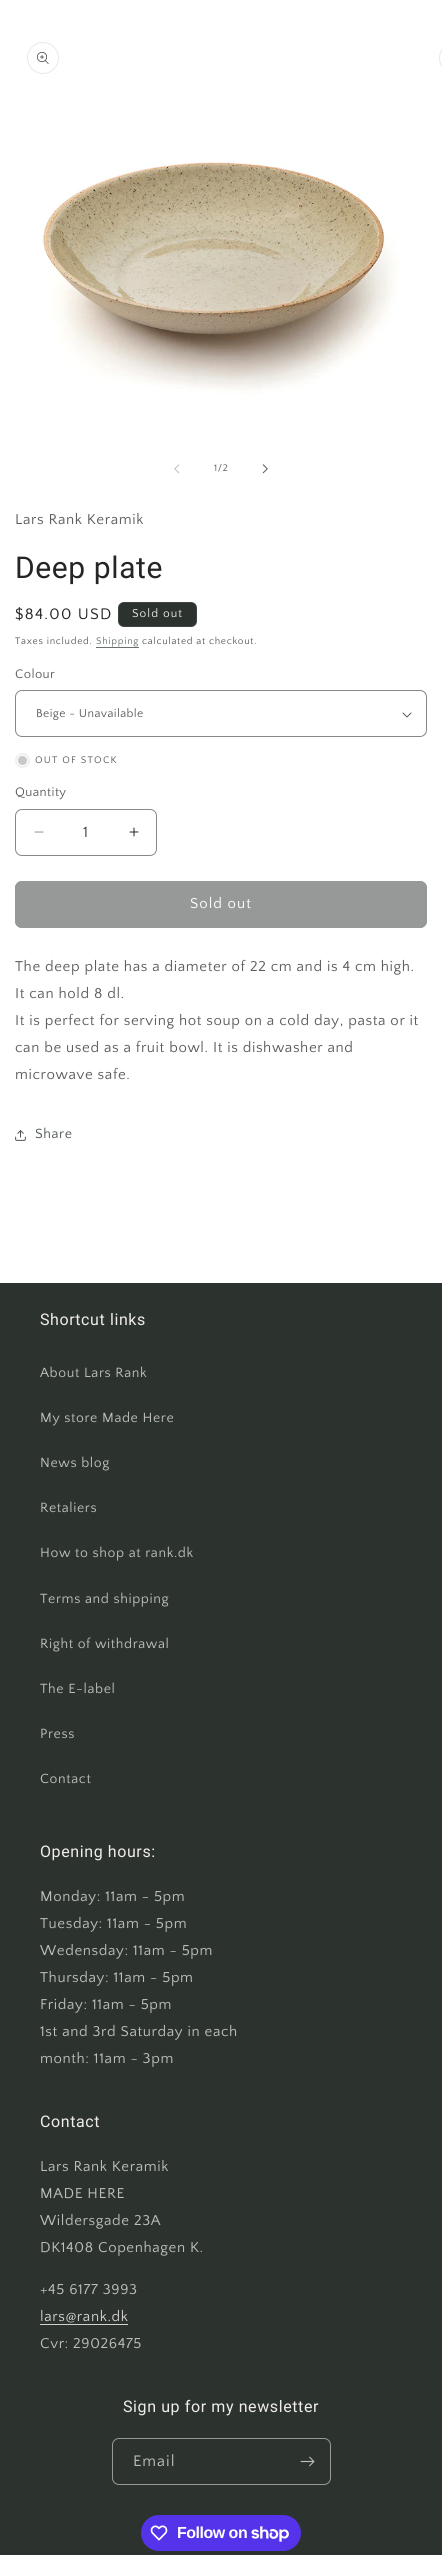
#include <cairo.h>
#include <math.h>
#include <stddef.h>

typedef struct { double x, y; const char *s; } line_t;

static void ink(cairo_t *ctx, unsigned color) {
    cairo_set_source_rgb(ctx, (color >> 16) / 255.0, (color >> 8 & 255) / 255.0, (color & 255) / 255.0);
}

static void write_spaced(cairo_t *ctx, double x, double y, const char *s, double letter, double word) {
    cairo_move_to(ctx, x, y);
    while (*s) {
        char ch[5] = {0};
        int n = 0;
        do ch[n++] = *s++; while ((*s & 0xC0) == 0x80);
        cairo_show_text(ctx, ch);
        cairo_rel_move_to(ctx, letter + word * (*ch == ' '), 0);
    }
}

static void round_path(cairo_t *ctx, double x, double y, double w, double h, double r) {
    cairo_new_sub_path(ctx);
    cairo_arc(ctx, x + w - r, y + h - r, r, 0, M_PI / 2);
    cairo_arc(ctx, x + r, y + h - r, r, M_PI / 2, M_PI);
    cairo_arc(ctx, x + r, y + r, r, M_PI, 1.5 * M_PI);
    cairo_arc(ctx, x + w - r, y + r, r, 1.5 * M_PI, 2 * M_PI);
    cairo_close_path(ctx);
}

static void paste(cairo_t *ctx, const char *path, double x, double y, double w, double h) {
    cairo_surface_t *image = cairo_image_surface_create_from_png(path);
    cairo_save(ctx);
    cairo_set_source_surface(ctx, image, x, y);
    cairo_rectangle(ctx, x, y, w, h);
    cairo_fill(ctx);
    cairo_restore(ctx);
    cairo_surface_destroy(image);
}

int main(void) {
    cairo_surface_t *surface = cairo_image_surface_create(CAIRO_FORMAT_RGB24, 442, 2555);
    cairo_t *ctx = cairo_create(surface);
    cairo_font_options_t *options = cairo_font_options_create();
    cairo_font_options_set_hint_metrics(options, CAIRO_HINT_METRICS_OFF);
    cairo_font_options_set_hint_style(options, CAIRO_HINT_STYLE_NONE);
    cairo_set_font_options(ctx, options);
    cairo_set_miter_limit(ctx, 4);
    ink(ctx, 0xFFFFFF);
    cairo_paint(ctx);
    cairo_arc(ctx, 43, 58, 15.5, 0, 2 * M_PI);
    ink(ctx, 0xE9E9E9);
    cairo_set_line_width(ctx, 1);
    cairo_stroke(ctx);
    paste(ctx, "media/1.png", 37, 52, 12, 12);
    paste(ctx, "media/2.png", 42, 161, 358, 267);
    round_path(ctx, 439.5, 42.5, 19, 31, 15.5);
    cairo_stroke(ctx);
    paste(ctx, "media/3.png", 174, 464, 6, 10);
    cairo_select_font_face(ctx, "Quattrocento Sans", CAIRO_FONT_SLANT_NORMAL, CAIRO_FONT_WEIGHT_NORMAL);
    cairo_set_font_size(ctx, 10);
    ink(ctx, 0x5C5C5C);
    write_spaced(ctx, 214, 471, "1/2", 0.7, 0);
    paste(ctx, "media/4.png", 262, 464, 6, 10);
    cairo_set_font_size(ctx, 15);
    write_spaced(ctx, 15, 524, "Lars Rank Keramik", 0.6, 0);
    cairo_select_font_face(ctx, "Roboto", CAIRO_FONT_SLANT_NORMAL, CAIRO_FONT_WEIGHT_NORMAL);
    cairo_set_font_size(ctx, 30);
    ink(ctx, 0x252525);
    write_spaced(ctx, 15, 578, "Deep plate", 0.6, 0);
    cairo_select_font_face(ctx, "Quattrocento Sans", CAIRO_FONT_SLANT_NORMAL, CAIRO_FONT_WEIGHT_NORMAL);
    cairo_set_font_size(ctx, 16);
    write_spaced(ctx, 15, 619, "$84.00 USD", 1.25, 0);
    ink(ctx, 0x2C332F);
    round_path(ctx, 118, 602, 79, 25, 6);
    cairo_fill(ctx);
    round_path(ctx, 118.5, 602.5, 78, 24, 5.5);
    cairo_set_source_rgba(ctx, 0.937, 0.925, 0.925, 0.1);
    cairo_stroke(ctx);
    cairo_set_font_size(ctx, 12);
    ink(ctx, 0xEFECEC);
    write_spaced(ctx, 132, 617, "Sold out", 1, 0);
    cairo_set_font_size(ctx, 10);
    ink(ctx, 0x5C5C5C);
    write_spaced(ctx, 15, 644, "Taxes included.", 0.7, 0);
    ink(ctx, 0x6A6F6F);
    write_spaced(ctx, 96, 644, "Shipping", 0.7, 0);
    cairo_rectangle(ctx, 96, 647, 43, 1);
    cairo_fill(ctx);
    ink(ctx, 0x5C5C5C);
    write_spaced(ctx, 142, 644, "calculated at checkout.", 0.7, 0);
    cairo_set_font_size(ctx, 13);
    write_spaced(ctx, 15, 678, "Colour", 0.4, 0);
    paste(ctx, "media/5.png", 402, 712, 10, 6);
    round_path(ctx, 15.5, 690.5, 411, 46, 6.5);
    ink(ctx, 0x878787);
    cairo_stroke(ctx);
    cairo_set_font_size(ctx, 12);
    ink(ctx, 0x5C5C5C);
    write_spaced(ctx, 36, 717, "Beige - Unavailable", 0.4, 0);
    ink(ctx, 0xEFEFEF);
    cairo_new_path(ctx);
    cairo_arc(ctx, 22.5, 760.5, 7.5, 0, 2 * M_PI);
    cairo_fill(ctx);
    ink(ctx, 0xC8C8C8);
    cairo_arc(ctx, 22.5, 760.5, 5, 0, 2 * M_PI);
    cairo_fill_preserve(ctx);
    ink(ctx, 0xFFFFFF);
    cairo_stroke(ctx);
    cairo_set_font_size(ctx, 10);
    ink(ctx, 0x5C5C5C);
    write_spaced(ctx, 35, 763, "OUT OF STOCK", 1.25, 0);
    cairo_set_font_size(ctx, 13);
    write_spaced(ctx, 15, 796, "Quantity", 0.4, 0);
    paste(ctx, "media/6.png", 34, 831, 10, 2);
    paste(ctx, "media/7.png", 129, 827, 10, 10);
    round_path(ctx, 15.5, 809.5, 141, 46, 6.5);
    ink(ctx, 0x878787);
    cairo_stroke(ctx);
    cairo_set_font_size(ctx, 16);
    ink(ctx, 0x464646);
    cairo_move_to(ctx, 83, 837);
    cairo_show_text(ctx, "1");
    ink(ctx, 0x969997);
    round_path(ctx, 15, 881, 412, 47, 7);
    cairo_fill(ctx);
    round_path(ctx, 15.5, 881.5, 411, 46, 6.5);
    cairo_stroke(ctx);
    cairo_set_font_size(ctx, 15);
    ink(ctx, 0xFFFFFF);
    write_spaced(ctx, 190, 908, "Sold out", 1, 0);
    ink(ctx, 0x5C5C5C);
    {
        static const line_t items[] = {
            {15, 971, "The deep plate has a diameter of 22 cm and is 4 cm high."},
            {15, 998, "It can hold 8 dl."},
            {15, 1025, "It is perfect for serving hot soup on a cold day, pasta or it"},
            {15, 1052, "can be used as a fruit bowl. It is dishwasher and"},
            {15, 1079, "microwave safe."},
        };
        for (size_t i = 0; i < sizeof items / sizeof *items; i++) {
            write_spaced(ctx, items[i].x, items[i].y, items[i].s, 0.6, 0);
        }
    }
    paste(ctx, "media/8.png", 15, 1130, 11, 11);
    cairo_set_font_size(ctx, 14);
    ink(ctx, 0x505655);
    write_spaced(ctx, 35, 1138, "Share", 0.6, 0);
    ink(ctx, 0x2C332F);
    cairo_rectangle(ctx, 0, 1283, 442, 1272);
    cairo_fill(ctx);
    cairo_select_font_face(ctx, "Roboto", CAIRO_FONT_SLANT_NORMAL, CAIRO_FONT_WEIGHT_NORMAL);
    cairo_set_font_size(ctx, 16);
    ink(ctx, 0xEFECEC);
    write_spaced(ctx, 40, 1325, "Shortcut links", 0.6, 0);
    cairo_select_font_face(ctx, "Quattrocento Sans", CAIRO_FONT_SLANT_NORMAL, CAIRO_FONT_WEIGHT_NORMAL);
    cairo_set_font_size(ctx, 14);
    ink(ctx, 0xBEBEBD);
    {
        static const line_t items[] = {
            {40, 1377, "About Lars Rank"},
            {40, 1422, "My store Made Here"},
            {40, 1467, "News blog"},
            {40, 1512, "Retaliers"},
            {40, 1557, "How to shop at rank.dk"},
            {40, 1603, "Terms and shipping"},
            {40, 1648, "Right of withdrawal"},
            {40, 1693, "The E-label"},
            {40, 1738, "Press"},
            {40, 1783, "Contact"},
        };
        for (size_t i = 0; i < sizeof items / sizeof *items; i++) {
            write_spaced(ctx, items[i].x, items[i].y, items[i].s, 0.6, 0);
        }
    }
    cairo_select_font_face(ctx, "Roboto", CAIRO_FONT_SLANT_NORMAL, CAIRO_FONT_WEIGHT_NORMAL);
    cairo_set_font_size(ctx, 16);
    ink(ctx, 0xEFECEC);
    write_spaced(ctx, 40, 1857, "Opening hours:", 0.6, 0);
    cairo_select_font_face(ctx, "Quattrocento Sans", CAIRO_FONT_SLANT_NORMAL, CAIRO_FONT_WEIGHT_NORMAL);
    cairo_set_font_size(ctx, 15);
    ink(ctx, 0xBEBEBD);
    {
        static const line_t items[] = {
            {40, 1901, "Monday: 11am - 5pm"},
            {40, 1928, "Tuesday: 11am - 5pm"},
            {40, 1955, "Wedensday: 11am - 5pm"},
            {40, 1982, "Thursday: 11am - 5pm"},
            {40, 2009, "Friday: 11am - 5pm"},
            {40, 2036, "1st and 3rd Saturday in each"},
            {40, 2063, "month: 11am - 3pm"},
        };
        for (size_t i = 0; i < sizeof items / sizeof *items; i++) {
            write_spaced(ctx, items[i].x, items[i].y, items[i].s, 0.6, 0);
        }
    }
    cairo_select_font_face(ctx, "Roboto", CAIRO_FONT_SLANT_NORMAL, CAIRO_FONT_WEIGHT_NORMAL);
    cairo_set_font_size(ctx, 16);
    ink(ctx, 0xEFECEC);
    write_spaced(ctx, 40, 2127, "Contact", 0.6, 0);
    cairo_select_font_face(ctx, "Quattrocento Sans", CAIRO_FONT_SLANT_NORMAL, CAIRO_FONT_WEIGHT_NORMAL);
    cairo_set_font_size(ctx, 15);
    ink(ctx, 0xBEBEBD);
    {
        static const line_t items[] = {
            {40, 2171, "Lars Rank Keramik"},
            {40, 2198, "MADE HERE"},
            {40, 2225, "Wildersgade 23A"},
            {40, 2252, "DK1408 Copenhagen K."},
            {40, 2294, "+45 6177 3993"},
        };
        for (size_t i = 0; i < sizeof items / sizeof *items; i++) {
            write_spaced(ctx, items[i].x, items[i].y, items[i].s, 0.6, 0);
        }
    }
    ink(ctx, 0xD2D0D0);
    write_spaced(ctx, 40, 2321, "lars@rank.dk", 0.6, 0);
    cairo_rectangle(ctx, 40, 2324, 88, 1);
    cairo_fill(ctx);
    ink(ctx, 0xBEBEBD);
    write_spaced(ctx, 40, 2348, "Cvr: 29026475", 0.6, 0);
    cairo_select_font_face(ctx, "Roboto", CAIRO_FONT_SLANT_NORMAL, CAIRO_FONT_WEIGHT_NORMAL);
    cairo_set_font_size(ctx, 16);
    ink(ctx, 0xEFECEC);
    write_spaced(ctx, 123, 2412, "Sign up for my newsletter", 0.6, 0);
    round_path(ctx, 112.5, 2438.5, 218, 46, 6.5);
    ink(ctx, 0x979997);
    cairo_stroke(ctx);
    cairo_select_font_face(ctx, "Quattrocento Sans", CAIRO_FONT_SLANT_NORMAL, CAIRO_FONT_WEIGHT_NORMAL);
    ink(ctx, 0xBEBEBD);
    write_spaced(ctx, 133, 2466, "Email", 1, 0);
    paste(ctx, "media/9.png", 300, 2456, 15, 11);
    ink(ctx, 0x5433EB);
    round_path(ctx, 141, 2515, 160, 36, 18);
    cairo_fill(ctx);
    paste(ctx, "media/10.png", 150, 2525, 18, 16);
    cairo_select_font_face(ctx, "Liberation Sans", CAIRO_FONT_SLANT_NORMAL, CAIRO_FONT_WEIGHT_BOLD);
    ink(ctx, 0xFFFFFF);
    write_spaced(ctx, 177, 2538, "Follow on", -0.5, 0);
    paste(ctx, "media/11.png", 251, 2526, 38, 16);
    cairo_surface_write_to_png(surface, "image.png");
    cairo_font_options_destroy(options);
    cairo_destroy(ctx);
    cairo_surface_destroy(surface);
    return 0;
}
